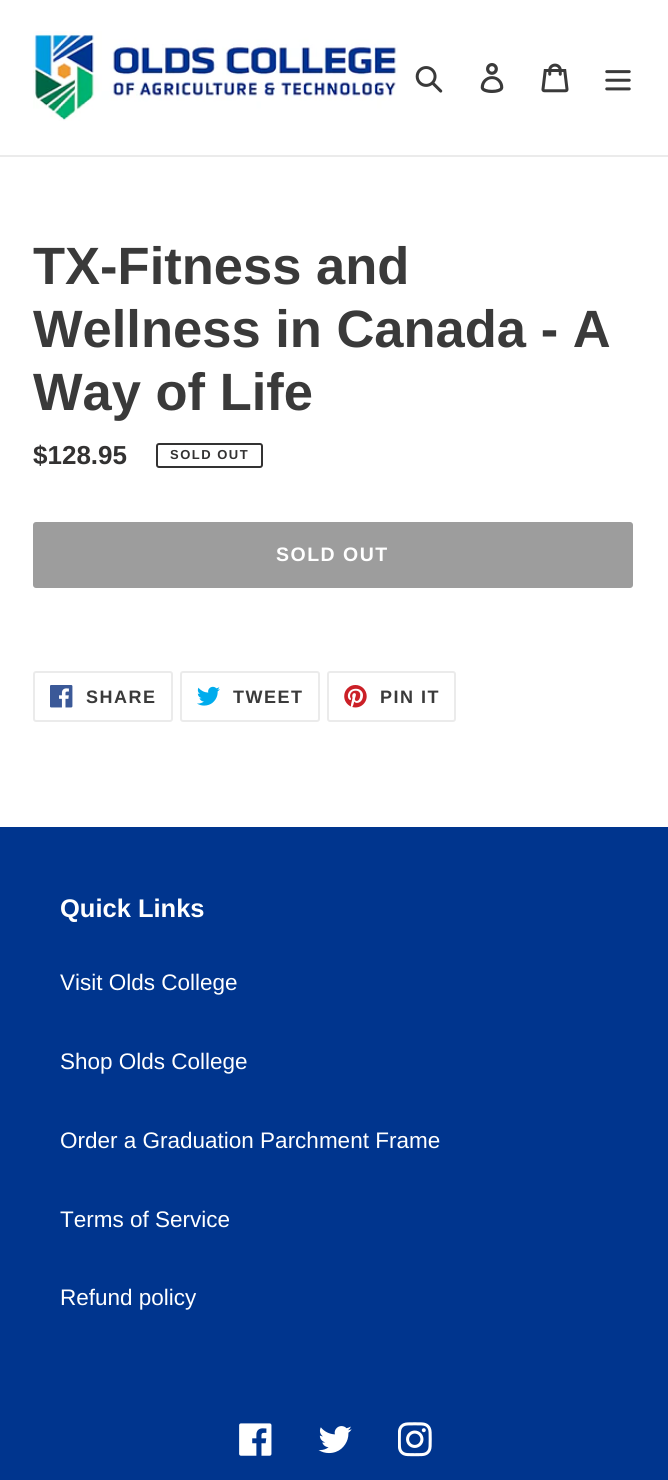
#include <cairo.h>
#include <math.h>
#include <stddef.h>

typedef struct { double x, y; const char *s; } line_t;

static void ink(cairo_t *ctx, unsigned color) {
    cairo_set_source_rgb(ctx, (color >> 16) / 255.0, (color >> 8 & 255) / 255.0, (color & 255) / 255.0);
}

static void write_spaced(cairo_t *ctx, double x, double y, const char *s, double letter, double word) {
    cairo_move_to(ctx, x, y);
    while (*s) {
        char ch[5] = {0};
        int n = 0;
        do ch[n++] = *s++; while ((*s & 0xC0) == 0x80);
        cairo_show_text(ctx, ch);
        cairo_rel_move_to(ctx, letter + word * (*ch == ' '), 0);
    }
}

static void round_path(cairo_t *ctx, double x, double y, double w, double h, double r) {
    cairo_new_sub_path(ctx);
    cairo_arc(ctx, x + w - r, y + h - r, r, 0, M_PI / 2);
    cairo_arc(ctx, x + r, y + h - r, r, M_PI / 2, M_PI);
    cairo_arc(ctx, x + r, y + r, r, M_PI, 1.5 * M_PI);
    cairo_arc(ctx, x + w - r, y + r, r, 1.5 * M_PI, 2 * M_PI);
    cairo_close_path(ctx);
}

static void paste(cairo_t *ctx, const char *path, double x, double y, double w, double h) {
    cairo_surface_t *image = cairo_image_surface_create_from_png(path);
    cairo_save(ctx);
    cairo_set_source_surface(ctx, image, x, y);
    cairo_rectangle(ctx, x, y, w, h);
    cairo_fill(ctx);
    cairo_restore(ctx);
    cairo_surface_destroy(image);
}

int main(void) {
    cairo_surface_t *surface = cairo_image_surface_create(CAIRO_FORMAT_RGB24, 668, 1480);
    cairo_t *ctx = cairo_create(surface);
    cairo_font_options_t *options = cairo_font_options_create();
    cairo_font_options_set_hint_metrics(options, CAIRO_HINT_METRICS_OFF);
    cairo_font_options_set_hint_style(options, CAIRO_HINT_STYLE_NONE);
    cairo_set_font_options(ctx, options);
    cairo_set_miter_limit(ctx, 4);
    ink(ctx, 0xFFFFFF);
    cairo_paint(ctx);
    ink(ctx, 0xEBEBEB);
    cairo_rectangle(ctx, 0, 155, 668, 2);
    cairo_fill(ctx);
    paste(ctx, "media/1.png", 33, 31, 365, 90);
    paste(ctx, "media/2.png", 415, 66, 28, 27);
    paste(ctx, "media/3.png", 480, 63, 24, 30);
    paste(ctx, "media/4.png", 541, 63, 28, 30);
    paste(ctx, "media/5.png", 605, 70, 26, 21);
    cairo_select_font_face(ctx, "Liberation Sans", CAIRO_FONT_SLANT_NORMAL, CAIRO_FONT_WEIGHT_BOLD);
    cairo_set_font_size(ctx, 52.5);
    ink(ctx, 0x3A3A3A);
    {
        static const line_t items[] = {
            {33, 284, "TX-Fitness and"},
            {33, 347, "Wellness in Canada - A"},
            {33, 410, "Way of Life"},
        };
        for (size_t i = 0; i < sizeof items / sizeof *items; i++) {
            cairo_move_to(ctx, items[i].x, items[i].y);
            cairo_show_text(ctx, items[i].s);
        }
    }
    cairo_set_font_size(ctx, 26);
    ink(ctx, 0x333232);
    cairo_move_to(ctx, 33, 464);
    cairo_show_text(ctx, "$128.95");
    round_path(ctx, 157, 444, 105, 23, 2);
    cairo_stroke(ctx);
    cairo_set_font_size(ctx, 13);
    write_spaced(ctx, 170, 459, "SOLD OUT", 1.5, 0);
    ink(ctx, 0x9D9D9D);
    round_path(ctx, 33, 522, 600, 66, 3);
    cairo_fill(ctx);
    cairo_set_font_size(ctx, 19.5);
    ink(ctx, 0xFFFFFF);
    write_spaced(ctx, 276, 561, "SOLD OUT", 1.5, 0);
    round_path(ctx, 34, 672, 138, 49, 2);
    ink(ctx, 0xEBEBEB);
    cairo_stroke(ctx);
    paste(ctx, "media/6.png", 50, 685, 23, 23);
    cairo_set_font_size(ctx, 18);
    ink(ctx, 0x3A3A3A);
    write_spaced(ctx, 86, 703, "SHARE", 1.5, 0);
    round_path(ctx, 181, 672, 138, 49, 2);
    ink(ctx, 0xEBEBEB);
    cairo_stroke(ctx);
    paste(ctx, "media/7.png", 197, 686, 23, 20);
    ink(ctx, 0x3A3A3A);
    write_spaced(ctx, 233, 703, "TWEET", 1.5, 0);
    round_path(ctx, 328, 672, 127, 49, 2);
    ink(ctx, 0xEBEBEB);
    cairo_stroke(ctx);
    paste(ctx, "media/8.png", 344, 685, 23, 23);
    ink(ctx, 0x3A3A3A);
    write_spaced(ctx, 380, 703, "PIN IT", 1.5, 0);
    ink(ctx, 0x00358E);
    cairo_rectangle(ctx, 0, 827, 668, 653);
    cairo_fill(ctx);
    cairo_set_font_size(ctx, 25.5);
    ink(ctx, 0xFFFFFF);
    cairo_move_to(ctx, 60, 917);
    cairo_show_text(ctx, "Quick Links");
    cairo_select_font_face(ctx, "Liberation Sans", CAIRO_FONT_SLANT_NORMAL, CAIRO_FONT_WEIGHT_NORMAL);
    cairo_set_font_size(ctx, 22.5);
    {
        static const line_t items[] = {
            {60, 990, "Visit Olds College"},
            {60, 1069, "Shop Olds College"},
            {60, 1148, "Order a Graduation Parchment Frame"},
            {60, 1227, "Terms of Service"},
            {60, 1305, "Refund policy"},
        };
        for (size_t i = 0; i < sizeof items / sizeof *items; i++) {
            cairo_move_to(ctx, items[i].x, items[i].y);
            cairo_show_text(ctx, items[i].s);
        }
    }
    paste(ctx, "media/9.png", 239, 1423, 33, 33);
    paste(ctx, "media/10.png", 318, 1426, 34, 28);
    paste(ctx, "media/11.png", 398, 1422, 34, 35);
    cairo_surface_write_to_png(surface, "image.png");
    cairo_font_options_destroy(options);
    cairo_destroy(ctx);
    cairo_surface_destroy(surface);
    return 0;
}
